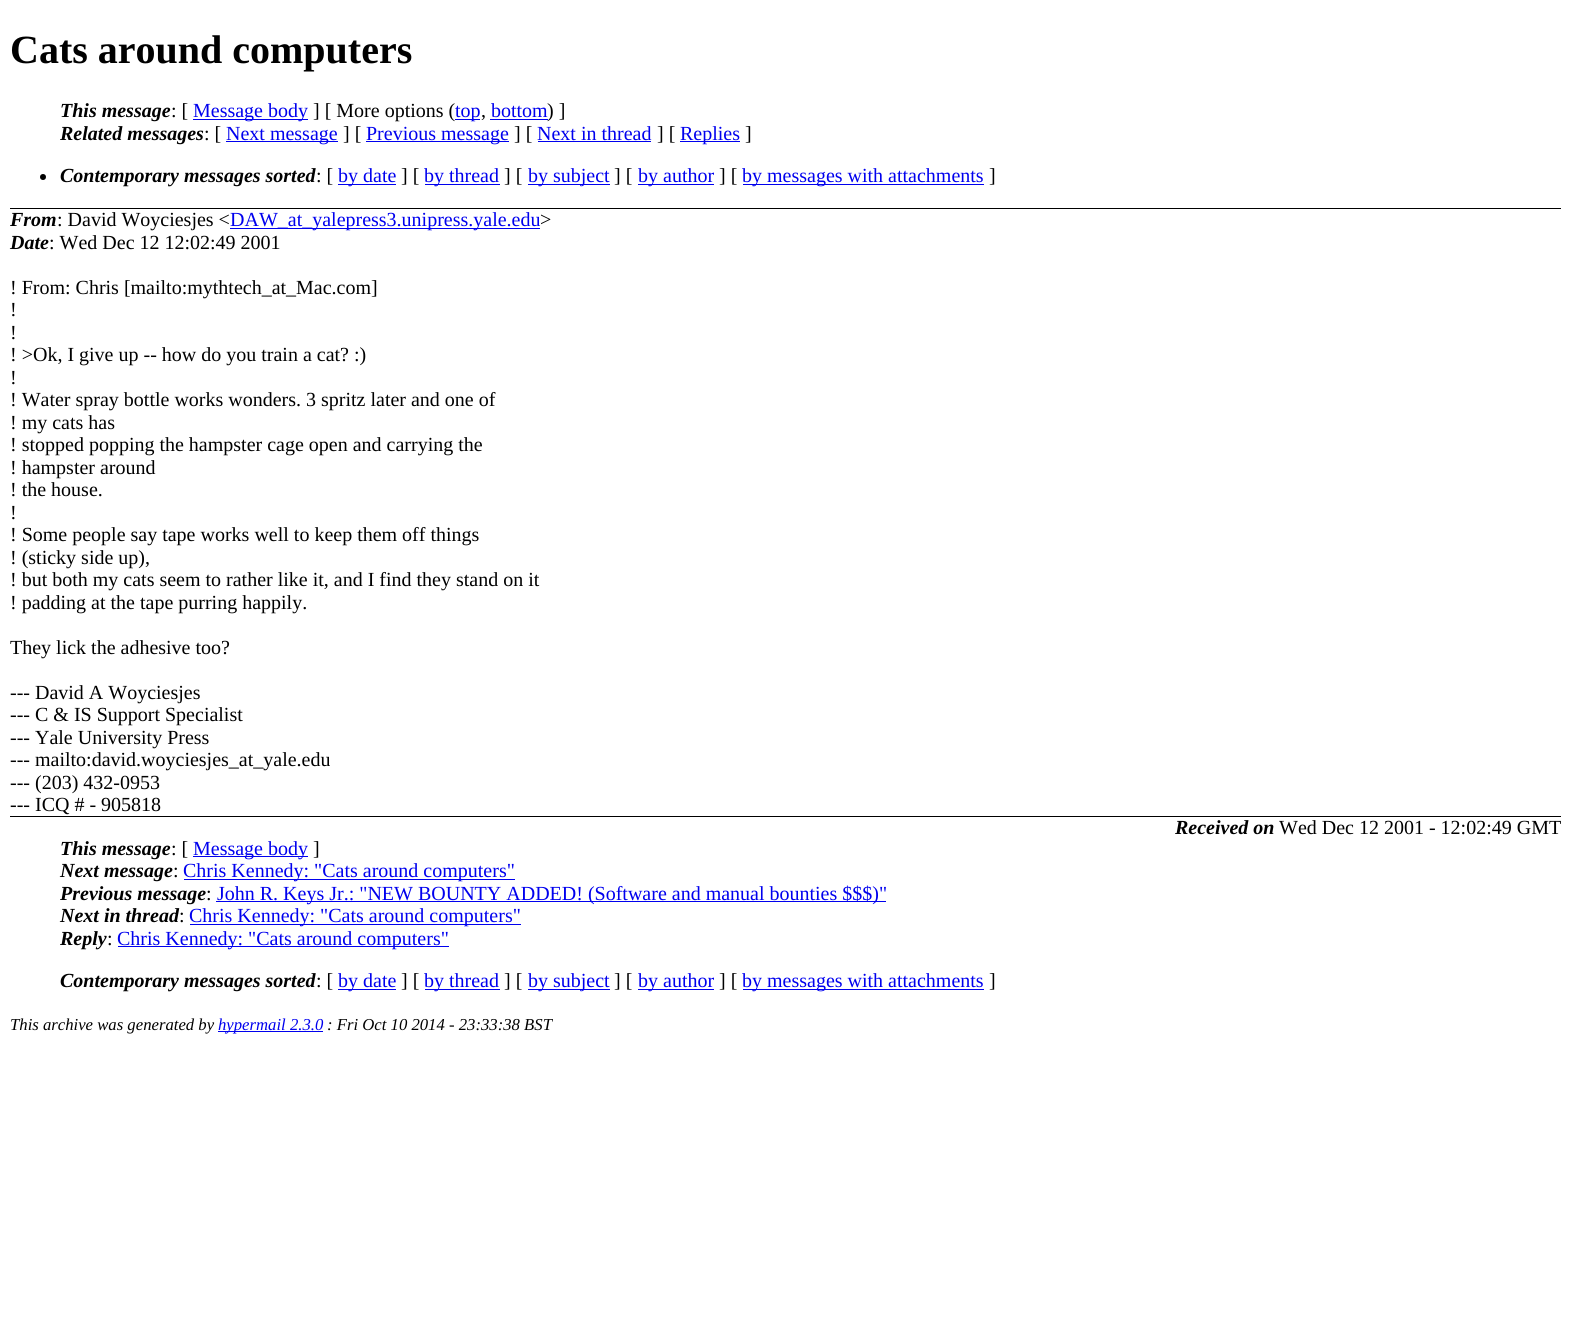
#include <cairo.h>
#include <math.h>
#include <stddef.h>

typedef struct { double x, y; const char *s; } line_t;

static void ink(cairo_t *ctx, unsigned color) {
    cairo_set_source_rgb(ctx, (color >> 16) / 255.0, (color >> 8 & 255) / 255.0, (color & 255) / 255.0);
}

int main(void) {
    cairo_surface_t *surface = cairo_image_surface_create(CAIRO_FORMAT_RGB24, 1571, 1325);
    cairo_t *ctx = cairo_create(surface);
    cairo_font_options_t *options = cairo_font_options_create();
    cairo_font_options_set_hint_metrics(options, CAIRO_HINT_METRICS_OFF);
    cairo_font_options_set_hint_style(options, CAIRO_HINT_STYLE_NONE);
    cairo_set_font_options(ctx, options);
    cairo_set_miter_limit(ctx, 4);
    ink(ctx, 0xFFFFFF);
    cairo_paint(ctx);
    ink(ctx, 0x000000);
    cairo_rectangle(ctx, 10, 208, 1551, 1);
    cairo_fill(ctx);
    cairo_select_font_face(ctx, "Liberation Serif", CAIRO_FONT_SLANT_NORMAL, CAIRO_FONT_WEIGHT_BOLD);
    cairo_set_font_size(ctx, 40);
    cairo_move_to(ctx, 10, 63);
    cairo_show_text(ctx, "Cats around computers");
    cairo_select_font_face(ctx, "Liberation Serif", CAIRO_FONT_SLANT_ITALIC, CAIRO_FONT_WEIGHT_BOLD);
    cairo_set_font_size(ctx, 20);
    cairo_move_to(ctx, 60, 117);
    cairo_show_text(ctx, "This message");
    cairo_select_font_face(ctx, "Liberation Serif", CAIRO_FONT_SLANT_NORMAL, CAIRO_FONT_WEIGHT_NORMAL);
    cairo_move_to(ctx, 171, 117);
    cairo_show_text(ctx, ": [");
    ink(ctx, 0x0000EE);
    cairo_rectangle(ctx, 193, 119, 115, 1);
    cairo_fill(ctx);
    cairo_move_to(ctx, 193, 117);
    cairo_show_text(ctx, "Message body");
    ink(ctx, 0x000000);
    cairo_move_to(ctx, 313, 117);
    cairo_show_text(ctx, "] [ More options (");
    ink(ctx, 0x0000EE);
    cairo_rectangle(ctx, 455, 119, 25, 1);
    cairo_fill(ctx);
    cairo_move_to(ctx, 455, 117);
    cairo_show_text(ctx, "top");
    ink(ctx, 0x000000);
    cairo_move_to(ctx, 481, 117);
    cairo_show_text(ctx, ",");
    ink(ctx, 0x0000EE);
    cairo_move_to(ctx, 491, 117);
    cairo_show_text(ctx, "bottom");
    cairo_rectangle(ctx, 490, 119, 58, 1);
    cairo_fill(ctx);
    ink(ctx, 0x000000);
    cairo_move_to(ctx, 547, 117);
    cairo_show_text(ctx, ") ]");
    cairo_select_font_face(ctx, "Liberation Serif", CAIRO_FONT_SLANT_ITALIC, CAIRO_FONT_WEIGHT_BOLD);
    cairo_move_to(ctx, 60, 140);
    cairo_show_text(ctx, "Related messages");
    cairo_select_font_face(ctx, "Liberation Serif", CAIRO_FONT_SLANT_NORMAL, CAIRO_FONT_WEIGHT_NORMAL);
    cairo_move_to(ctx, 204, 140);
    cairo_show_text(ctx, ": [");
    ink(ctx, 0x0000EE);
    cairo_rectangle(ctx, 226, 141, 112, 1);
    cairo_fill(ctx);
    cairo_move_to(ctx, 226, 140);
    cairo_show_text(ctx, "Next message");
    ink(ctx, 0x000000);
    cairo_move_to(ctx, 343, 140);
    cairo_show_text(ctx, "] [");
    ink(ctx, 0x0000EE);
    cairo_rectangle(ctx, 366, 141, 143, 1);
    cairo_fill(ctx);
    cairo_move_to(ctx, 366, 140);
    cairo_show_text(ctx, "Previous message");
    ink(ctx, 0x000000);
    cairo_move_to(ctx, 514, 140);
    cairo_show_text(ctx, "] [");
    ink(ctx, 0x0000EE);
    cairo_move_to(ctx, 537, 140);
    cairo_show_text(ctx, "Next in thread");
    cairo_rectangle(ctx, 538, 141, 113, 1);
    cairo_fill(ctx);
    ink(ctx, 0x000000);
    cairo_move_to(ctx, 657, 140);
    cairo_show_text(ctx, "] [");
    ink(ctx, 0x0000EE);
    cairo_rectangle(ctx, 680, 141, 60, 1);
    cairo_fill(ctx);
    cairo_move_to(ctx, 680, 140);
    cairo_show_text(ctx, "Replies");
    ink(ctx, 0x000000);
    cairo_move_to(ctx, 745, 140);
    cairo_show_text(ctx, "]");
    cairo_new_path(ctx);
    cairo_arc(ctx, 43, 177, 3, 0, 2 * M_PI);
    cairo_fill(ctx);
    cairo_select_font_face(ctx, "Liberation Serif", CAIRO_FONT_SLANT_ITALIC, CAIRO_FONT_WEIGHT_BOLD);
    cairo_move_to(ctx, 60, 182);
    cairo_show_text(ctx, "Contemporary messages sorted");
    cairo_select_font_face(ctx, "Liberation Serif", CAIRO_FONT_SLANT_NORMAL, CAIRO_FONT_WEIGHT_NORMAL);
    cairo_move_to(ctx, 316, 182);
    cairo_show_text(ctx, ": [");
    ink(ctx, 0x0000EE);
    cairo_rectangle(ctx, 338, 184, 58, 1);
    cairo_fill(ctx);
    cairo_move_to(ctx, 338, 182);
    cairo_show_text(ctx, "by date");
    ink(ctx, 0x000000);
    cairo_move_to(ctx, 401, 182);
    cairo_show_text(ctx, "] [");
    ink(ctx, 0x0000EE);
    cairo_rectangle(ctx, 425, 184, 75, 1);
    cairo_fill(ctx);
    cairo_move_to(ctx, 424, 182);
    cairo_show_text(ctx, "by thread");
    ink(ctx, 0x000000);
    cairo_move_to(ctx, 504, 182);
    cairo_show_text(ctx, "] [");
    ink(ctx, 0x0000EE);
    cairo_rectangle(ctx, 528, 184, 82, 1);
    cairo_fill(ctx);
    cairo_move_to(ctx, 528, 182);
    cairo_show_text(ctx, "by subject");
    ink(ctx, 0x000000);
    cairo_move_to(ctx, 614, 182);
    cairo_show_text(ctx, "] [");
    ink(ctx, 0x0000EE);
    cairo_rectangle(ctx, 638, 184, 76, 1);
    cairo_fill(ctx);
    cairo_move_to(ctx, 638, 182);
    cairo_show_text(ctx, "by author");
    ink(ctx, 0x000000);
    cairo_move_to(ctx, 719, 182);
    cairo_show_text(ctx, "] [");
    ink(ctx, 0x0000EE);
    cairo_rectangle(ctx, 743, 184, 241, 1);
    cairo_fill(ctx);
    cairo_move_to(ctx, 742, 182);
    cairo_show_text(ctx, "by messages with attachments");
    ink(ctx, 0x000000);
    cairo_move_to(ctx, 989, 182);
    cairo_show_text(ctx, "]");
    cairo_select_font_face(ctx, "Liberation Serif", CAIRO_FONT_SLANT_ITALIC, CAIRO_FONT_WEIGHT_BOLD);
    cairo_move_to(ctx, 10, 226);
    cairo_show_text(ctx, "From");
    cairo_select_font_face(ctx, "Liberation Serif", CAIRO_FONT_SLANT_NORMAL, CAIRO_FONT_WEIGHT_NORMAL);
    cairo_move_to(ctx, 57, 226);
    cairo_show_text(ctx, ": David Woyciesjes <");
    ink(ctx, 0x0000EE);
    cairo_rectangle(ctx, 230, 228, 310, 1);
    cairo_fill(ctx);
    cairo_move_to(ctx, 230, 226);
    cairo_show_text(ctx, "DAW_at_yalepress3.unipress.yale.edu");
    ink(ctx, 0x000000);
    cairo_move_to(ctx, 540, 226);
    cairo_show_text(ctx, ">");
    cairo_select_font_face(ctx, "Liberation Serif", CAIRO_FONT_SLANT_ITALIC, CAIRO_FONT_WEIGHT_BOLD);
    cairo_move_to(ctx, 10, 249);
    cairo_show_text(ctx, "Date");
    cairo_select_font_face(ctx, "Liberation Serif", CAIRO_FONT_SLANT_NORMAL, CAIRO_FONT_WEIGHT_NORMAL);
    {
        static const line_t items[] = {
            {49, 249, ": Wed Dec 12 12:02:49 2001"},
            {10, 294, "! From: Chris [mailto:mythtech_at_Mac.com]"},
            {10, 316, "!"},
            {10, 339, "!"},
            {10, 361, "! >Ok, I give up -- how do you train a cat? :)"},
            {10, 384, "!"},
            {10, 406, "! Water spray bottle works wonders. 3 spritz later and one of"},
            {10, 429, "! my cats has"},
            {10, 451, "! stopped popping the hampster cage open and carrying the"},
            {10, 474, "! hampster around"},
            {10, 496, "! the house."},
            {10, 519, "!"},
            {10, 541, "! Some people say tape works well to keep them off things"},
            {10, 564, "! (sticky side up),"},
            {10, 586, "! but both my cats seem to rather like it, and I find they stand on it"},
            {10, 609, "! padding at the tape purring happily."},
            {10, 654, "They lick the adhesive too?"},
            {10, 699, "--- David A Woyciesjes"},
            {10, 721, "--- C & IS Support Specialist"},
            {10, 744, "--- Yale University Press"},
            {10, 766, "--- mailto:david.woyciesjes_at_yale.edu"},
            {10, 789, "--- (203) 432-0953"},
            {10, 811, "--- ICQ # - 905818"},
        };
        for (size_t i = 0; i < sizeof items / sizeof *items; i++) {
            cairo_move_to(ctx, items[i].x, items[i].y);
            cairo_show_text(ctx, items[i].s);
        }
    }
    cairo_select_font_face(ctx, "Liberation Serif", CAIRO_FONT_SLANT_ITALIC, CAIRO_FONT_WEIGHT_BOLD);
    cairo_move_to(ctx, 1175, 834);
    cairo_show_text(ctx, "Received on");
    cairo_select_font_face(ctx, "Liberation Serif", CAIRO_FONT_SLANT_NORMAL, CAIRO_FONT_WEIGHT_NORMAL);
    cairo_move_to(ctx, 1279, 834);
    cairo_show_text(ctx, "Wed Dec 12 2001 - 12:02:49 GMT");
    cairo_rectangle(ctx, 10, 816, 1551, 1);
    cairo_fill(ctx);
    cairo_select_font_face(ctx, "Liberation Serif", CAIRO_FONT_SLANT_ITALIC, CAIRO_FONT_WEIGHT_BOLD);
    cairo_move_to(ctx, 60, 855);
    cairo_show_text(ctx, "This message");
    cairo_select_font_face(ctx, "Liberation Serif", CAIRO_FONT_SLANT_NORMAL, CAIRO_FONT_WEIGHT_NORMAL);
    cairo_move_to(ctx, 171, 855);
    cairo_show_text(ctx, ": [");
    ink(ctx, 0x0000EE);
    cairo_rectangle(ctx, 193, 856, 115, 1);
    cairo_fill(ctx);
    cairo_move_to(ctx, 193, 855);
    cairo_show_text(ctx, "Message body");
    ink(ctx, 0x000000);
    cairo_move_to(ctx, 313, 855);
    cairo_show_text(ctx, "]");
    cairo_select_font_face(ctx, "Liberation Serif", CAIRO_FONT_SLANT_ITALIC, CAIRO_FONT_WEIGHT_BOLD);
    cairo_move_to(ctx, 60, 877);
    cairo_show_text(ctx, "Next message");
    cairo_select_font_face(ctx, "Liberation Serif", CAIRO_FONT_SLANT_NORMAL, CAIRO_FONT_WEIGHT_NORMAL);
    cairo_move_to(ctx, 173, 877);
    cairo_show_text(ctx, ":");
    ink(ctx, 0x0000EE);
    cairo_rectangle(ctx, 184, 879, 331, 1);
    cairo_fill(ctx);
    cairo_move_to(ctx, 183, 877);
    cairo_show_text(ctx, "Chris Kennedy: \"Cats around computers\"");
    cairo_select_font_face(ctx, "Liberation Serif", CAIRO_FONT_SLANT_ITALIC, CAIRO_FONT_WEIGHT_BOLD);
    ink(ctx, 0x000000);
    cairo_move_to(ctx, 60, 900);
    cairo_show_text(ctx, "Previous message");
    cairo_select_font_face(ctx, "Liberation Serif", CAIRO_FONT_SLANT_NORMAL, CAIRO_FONT_WEIGHT_NORMAL);
    cairo_move_to(ctx, 206, 900);
    cairo_show_text(ctx, ":");
    ink(ctx, 0x0000EE);
    cairo_rectangle(ctx, 216, 901, 670, 1);
    cairo_fill(ctx);
    cairo_move_to(ctx, 217, 900);
    cairo_show_text(ctx, "John R. Keys Jr.: \"NEW BOUNTY ADDED! (Software and manual bounties $$$)\"");
    cairo_select_font_face(ctx, "Liberation Serif", CAIRO_FONT_SLANT_ITALIC, CAIRO_FONT_WEIGHT_BOLD);
    ink(ctx, 0x000000);
    cairo_move_to(ctx, 60, 922);
    cairo_show_text(ctx, "Next in thread");
    cairo_select_font_face(ctx, "Liberation Serif", CAIRO_FONT_SLANT_NORMAL, CAIRO_FONT_WEIGHT_NORMAL);
    cairo_move_to(ctx, 179, 922);
    cairo_show_text(ctx, ":");
    ink(ctx, 0x0000EE);
    cairo_rectangle(ctx, 190, 924, 331, 1);
    cairo_fill(ctx);
    cairo_move_to(ctx, 189, 922);
    cairo_show_text(ctx, "Chris Kennedy: \"Cats around computers\"");
    cairo_select_font_face(ctx, "Liberation Serif", CAIRO_FONT_SLANT_ITALIC, CAIRO_FONT_WEIGHT_BOLD);
    ink(ctx, 0x000000);
    cairo_move_to(ctx, 60, 945);
    cairo_show_text(ctx, "Reply");
    cairo_select_font_face(ctx, "Liberation Serif", CAIRO_FONT_SLANT_NORMAL, CAIRO_FONT_WEIGHT_NORMAL);
    cairo_move_to(ctx, 107, 945);
    cairo_show_text(ctx, ":");
    ink(ctx, 0x0000EE);
    cairo_rectangle(ctx, 118, 946, 331, 1);
    cairo_fill(ctx);
    cairo_move_to(ctx, 117, 945);
    cairo_show_text(ctx, "Chris Kennedy: \"Cats around computers\"");
    cairo_select_font_face(ctx, "Liberation Serif", CAIRO_FONT_SLANT_ITALIC, CAIRO_FONT_WEIGHT_BOLD);
    ink(ctx, 0x000000);
    cairo_move_to(ctx, 60, 987);
    cairo_show_text(ctx, "Contemporary messages sorted");
    cairo_select_font_face(ctx, "Liberation Serif", CAIRO_FONT_SLANT_NORMAL, CAIRO_FONT_WEIGHT_NORMAL);
    cairo_move_to(ctx, 316, 987);
    cairo_show_text(ctx, ": [");
    ink(ctx, 0x0000EE);
    cairo_rectangle(ctx, 338, 989, 58, 1);
    cairo_fill(ctx);
    cairo_move_to(ctx, 338, 987);
    cairo_show_text(ctx, "by date");
    ink(ctx, 0x000000);
    cairo_move_to(ctx, 401, 987);
    cairo_show_text(ctx, "] [");
    ink(ctx, 0x0000EE);
    cairo_rectangle(ctx, 425, 989, 75, 1);
    cairo_fill(ctx);
    cairo_move_to(ctx, 424, 987);
    cairo_show_text(ctx, "by thread");
    ink(ctx, 0x000000);
    cairo_move_to(ctx, 504, 987);
    cairo_show_text(ctx, "] [");
    ink(ctx, 0x0000EE);
    cairo_rectangle(ctx, 528, 989, 82, 1);
    cairo_fill(ctx);
    cairo_move_to(ctx, 528, 987);
    cairo_show_text(ctx, "by subject");
    ink(ctx, 0x000000);
    cairo_move_to(ctx, 614, 987);
    cairo_show_text(ctx, "] [");
    ink(ctx, 0x0000EE);
    cairo_rectangle(ctx, 638, 989, 76, 1);
    cairo_fill(ctx);
    cairo_move_to(ctx, 638, 987);
    cairo_show_text(ctx, "by author");
    ink(ctx, 0x000000);
    cairo_move_to(ctx, 719, 987);
    cairo_show_text(ctx, "] [");
    ink(ctx, 0x0000EE);
    cairo_rectangle(ctx, 743, 989, 241, 1);
    cairo_fill(ctx);
    cairo_move_to(ctx, 742, 987);
    cairo_show_text(ctx, "by messages with attachments");
    ink(ctx, 0x000000);
    cairo_move_to(ctx, 989, 987);
    cairo_show_text(ctx, "]");
    cairo_select_font_face(ctx, "Liberation Serif", CAIRO_FONT_SLANT_ITALIC, CAIRO_FONT_WEIGHT_NORMAL);
    cairo_set_font_size(ctx, 16.7);
    cairo_move_to(ctx, 10, 1030);
    cairo_show_text(ctx, "This archive was generated by");
    ink(ctx, 0x0000EE);
    cairo_rectangle(ctx, 218, 1031, 105, 1);
    cairo_fill(ctx);
    cairo_move_to(ctx, 218, 1030);
    cairo_show_text(ctx, "hypermail 2.3.0");
    ink(ctx, 0x000000);
    cairo_move_to(ctx, 327, 1030);
    cairo_show_text(ctx, ": Fri Oct 10 2014 - 23:33:38 BST");
    cairo_surface_write_to_png(surface, "image.png");
    cairo_font_options_destroy(options);
    cairo_destroy(ctx);
    cairo_surface_destroy(surface);
    return 0;
}
